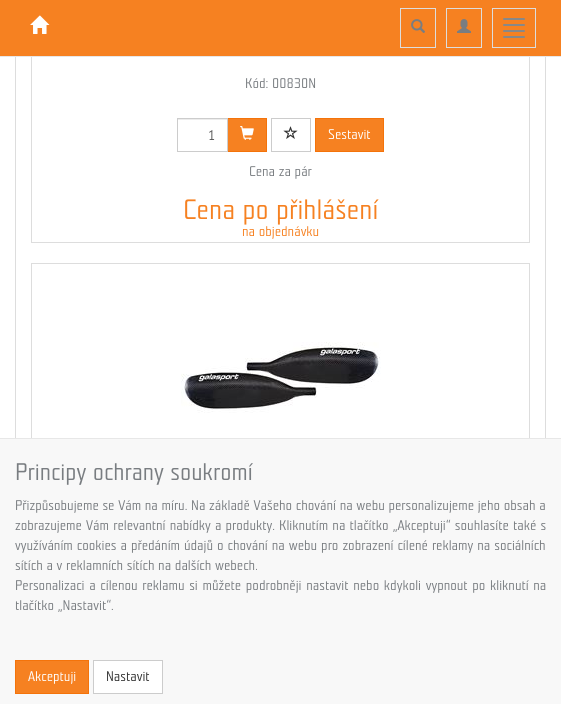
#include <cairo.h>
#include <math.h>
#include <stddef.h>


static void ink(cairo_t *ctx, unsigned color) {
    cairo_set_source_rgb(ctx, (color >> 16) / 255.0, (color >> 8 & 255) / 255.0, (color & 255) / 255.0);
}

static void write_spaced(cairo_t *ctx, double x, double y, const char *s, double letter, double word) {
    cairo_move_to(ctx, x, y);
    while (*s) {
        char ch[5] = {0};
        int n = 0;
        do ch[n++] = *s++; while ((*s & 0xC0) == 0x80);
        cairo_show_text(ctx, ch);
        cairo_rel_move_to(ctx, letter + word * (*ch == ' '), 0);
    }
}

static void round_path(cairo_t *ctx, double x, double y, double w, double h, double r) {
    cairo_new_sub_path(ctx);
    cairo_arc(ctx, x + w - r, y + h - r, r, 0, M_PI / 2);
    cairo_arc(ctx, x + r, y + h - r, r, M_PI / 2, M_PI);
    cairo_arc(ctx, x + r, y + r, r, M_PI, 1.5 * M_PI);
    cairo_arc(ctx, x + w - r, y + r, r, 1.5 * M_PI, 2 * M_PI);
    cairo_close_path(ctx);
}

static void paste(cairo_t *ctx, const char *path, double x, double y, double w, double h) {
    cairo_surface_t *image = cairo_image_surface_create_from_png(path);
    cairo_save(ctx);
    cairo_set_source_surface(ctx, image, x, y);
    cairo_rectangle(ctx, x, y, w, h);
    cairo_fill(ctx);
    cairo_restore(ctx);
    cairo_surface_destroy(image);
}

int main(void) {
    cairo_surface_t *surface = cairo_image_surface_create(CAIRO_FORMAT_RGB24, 561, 704);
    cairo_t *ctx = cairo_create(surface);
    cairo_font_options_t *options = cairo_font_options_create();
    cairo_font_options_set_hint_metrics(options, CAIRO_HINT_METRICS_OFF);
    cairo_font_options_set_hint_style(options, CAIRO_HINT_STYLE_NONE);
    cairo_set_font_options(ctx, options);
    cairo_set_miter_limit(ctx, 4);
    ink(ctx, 0xFFFFFF);
    cairo_paint(ctx);
    cairo_rectangle(ctx, 15.5, -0.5, 530, 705);
    ink(ctx, 0xDDDDDD);
    cairo_set_line_width(ctx, 1);
    cairo_stroke(ctx);
    cairo_rectangle(ctx, 31.5, -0.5, 498, 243);
    cairo_stroke(ctx);
    ink(ctx, 0xF68121);
    cairo_rectangle(ctx, 0, 0, 561, 56);
    cairo_fill(ctx);
    ink(ctx, 0xE7E7E7);
    cairo_rectangle(ctx, 0, 56, 561, 1);
    cairo_fill(ctx);
    paste(ctx, "media/1.png", 30, 15, 20, 19);
    cairo_rectangle(ctx, 400.5, 8.5, 35, 39);
    ink(ctx, 0xDDDDDD);
    cairo_stroke(ctx);
    paste(ctx, "media/2.png", 411, 19, 14, 14);
    cairo_rectangle(ctx, 446.5, 8.5, 35, 39);
    cairo_stroke(ctx);
    paste(ctx, "media/3.png", 457, 19, 14, 14);
    cairo_rectangle(ctx, 492.5, 8.5, 43, 39);
    cairo_stroke(ctx);
    ink(ctx, 0x888888);
    round_path(ctx, 503, 18, 22, 2, 1);
    cairo_fill(ctx);
    round_path(ctx, 503, 24, 22, 2, 1);
    cairo_fill(ctx);
    round_path(ctx, 503, 30, 22, 2, 1);
    cairo_fill(ctx);
    round_path(ctx, 503, 36, 22, 2, 1);
    cairo_fill(ctx);
    cairo_select_font_face(ctx, "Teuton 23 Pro", CAIRO_FONT_SLANT_NORMAL, CAIRO_FONT_WEIGHT_NORMAL);
    cairo_set_font_size(ctx, 14);
    ink(ctx, 0x797D81);
    cairo_move_to(ctx, 245, 88);
    cairo_show_text(ctx, "Kód: 00830N");
    ink(ctx, 0xECECEC);
    cairo_rectangle(ctx, 178, 119, 49, 1);
    cairo_fill(ctx);
    ink(ctx, 0xF68121);
    cairo_rectangle(ctx, 227.5, 118.5, 39, 33);
    cairo_fill_preserve(ctx);
    ink(ctx, 0xF4730A);
    cairo_stroke(ctx);
    cairo_rectangle(ctx, 177.5, 118.5, 50, 33);
    ink(ctx, 0xCCCCCC);
    cairo_stroke(ctx);
    ink(ctx, 0x555555);
    cairo_move_to(ctx, 208, 140);
    cairo_show_text(ctx, "1");
    paste(ctx, "media/4.png", 240, 126, 14, 14);
    cairo_rectangle(ctx, 271.5, 118.5, 39, 33);
    ink(ctx, 0xCCCCCC);
    cairo_stroke(ctx);
    paste(ctx, "media/5.png", 283, 126, 15, 13);
    ink(ctx, 0xF68121);
    cairo_rectangle(ctx, 315.5, 118.5, 68, 33);
    cairo_fill_preserve(ctx);
    ink(ctx, 0xF4730A);
    cairo_stroke(ctx);
    ink(ctx, 0xFFFFFF);
    cairo_move_to(ctx, 328, 139);
    cairo_show_text(ctx, "Sestavit");
    ink(ctx, 0x797D81);
    cairo_move_to(ctx, 249, 176);
    cairo_show_text(ctx, "Cena za pár");
    cairo_set_font_size(ctx, 28);
    ink(ctx, 0xF68121);
    cairo_move_to(ctx, 183, 219);
    cairo_show_text(ctx, "Cena po přihlášení");
    cairo_set_font_size(ctx, 14);
    cairo_move_to(ctx, 242, 236);
    cairo_show_text(ctx, "na objednávku");
    cairo_rectangle(ctx, 31.5, 263.5, 498, 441);
    ink(ctx, 0xDDDDDD);
    cairo_stroke(ctx);
    paste(ctx, "media/6.png", 181, 342, 200, 71);
    ink(ctx, 0xF8F8F8);
    cairo_rectangle(ctx, 0, 439, 561, 265);
    cairo_fill(ctx);
    ink(ctx, 0xE7E7E7);
    cairo_rectangle(ctx, 0, 438, 561, 1);
    cairo_fill(ctx);
    cairo_set_font_size(ctx, 24);
    ink(ctx, 0x797D81);
    cairo_move_to(ctx, 15, 480);
    cairo_show_text(ctx, "Principy ochrany soukromí");
    cairo_set_font_size(ctx, 14);
    cairo_move_to(ctx, 15, 510);
    cairo_show_text(ctx, "Přizpůsobujeme se Vám na míru. Na základě Vašeho chování na webu personalizujeme jeho obsah a");
    write_spaced(ctx, 15, 530, "zobrazujeme Vám relevantní nabídky a produkty.", 0, 0.5);
    write_spaced(ctx, 279, 530, "Kliknutím na tlačítko „Akceptuji“ souhlasíte také s", 0, 0.5);
    write_spaced(ctx, 15, 550, "využíváním cookies a předáním údajů o chování na webu pro zobrazení cílené reklamy na sociálních", 0, 0.3);
    cairo_move_to(ctx, 15, 570);
    cairo_show_text(ctx, "sítích a v reklamních sítích na dalších webech.");
    write_spaced(ctx, 15, 590, "Personalizaci a cílenou reklamu si můžete podrobněji nastavit nebo kdykoli vypnout po kliknutí na", 0, 1);
    cairo_move_to(ctx, 15, 610);
    cairo_show_text(ctx, "tlačítko „Nastavit“.");
    ink(ctx, 0xF68121);
    cairo_rectangle(ctx, 15.5, 660.5, 73, 33);
    cairo_fill_preserve(ctx);
    ink(ctx, 0xF4730A);
    cairo_stroke(ctx);
    ink(ctx, 0xFFFFFF);
    cairo_move_to(ctx, 28, 681);
    cairo_show_text(ctx, "Akceptuji");
    cairo_rectangle(ctx, 93.5, 660.5, 69, 33);
    cairo_fill_preserve(ctx);
    ink(ctx, 0xCCCCCC);
    cairo_stroke(ctx);
    ink(ctx, 0x333333);
    cairo_move_to(ctx, 106, 681);
    cairo_show_text(ctx, "Nastavit");
    cairo_surface_write_to_png(surface, "image.png");
    cairo_font_options_destroy(options);
    cairo_destroy(ctx);
    cairo_surface_destroy(surface);
    return 0;
}
